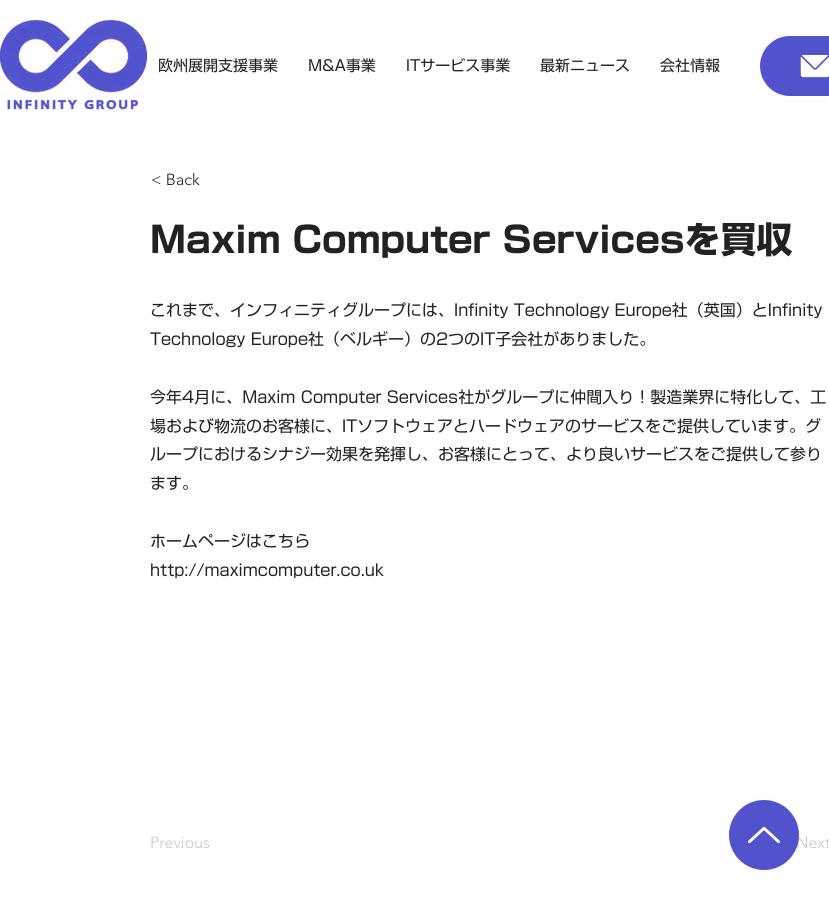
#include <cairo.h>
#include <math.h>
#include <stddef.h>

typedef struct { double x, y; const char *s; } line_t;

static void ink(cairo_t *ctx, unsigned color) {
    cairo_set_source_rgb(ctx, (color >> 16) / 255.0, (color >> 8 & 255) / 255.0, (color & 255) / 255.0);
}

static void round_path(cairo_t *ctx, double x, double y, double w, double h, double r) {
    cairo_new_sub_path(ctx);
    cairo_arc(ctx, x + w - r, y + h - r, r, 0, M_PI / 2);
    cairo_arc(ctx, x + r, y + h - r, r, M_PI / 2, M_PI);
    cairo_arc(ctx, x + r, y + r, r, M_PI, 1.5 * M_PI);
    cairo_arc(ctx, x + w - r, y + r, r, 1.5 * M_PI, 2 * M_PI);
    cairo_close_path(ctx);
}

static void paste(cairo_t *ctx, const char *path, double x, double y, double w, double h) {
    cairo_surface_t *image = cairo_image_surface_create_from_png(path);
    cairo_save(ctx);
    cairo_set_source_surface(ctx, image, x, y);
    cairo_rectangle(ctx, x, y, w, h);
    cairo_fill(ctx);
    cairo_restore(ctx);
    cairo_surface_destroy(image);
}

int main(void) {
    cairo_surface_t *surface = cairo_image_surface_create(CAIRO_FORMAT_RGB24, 829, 900);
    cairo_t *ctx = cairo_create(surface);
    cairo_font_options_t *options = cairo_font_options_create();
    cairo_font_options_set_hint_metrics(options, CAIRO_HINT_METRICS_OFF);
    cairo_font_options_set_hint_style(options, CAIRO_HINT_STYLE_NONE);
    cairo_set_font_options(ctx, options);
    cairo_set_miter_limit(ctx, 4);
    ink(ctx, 0xFFFFFF);
    cairo_paint(ctx);
    paste(ctx, "media/1.png", 0, 20, 147, 92);
    cairo_select_font_face(ctx, "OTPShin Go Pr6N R", CAIRO_FONT_SLANT_NORMAL, CAIRO_FONT_WEIGHT_NORMAL);
    cairo_set_font_size(ctx, 15);
    ink(ctx, 0x222222);
    {
        static const line_t items[] = {
            {158, 71, "欧州展開支援事業"},
            {308, 71, "M&A事業"},
            {406, 71, "ITサービス事業"},
            {540, 71, "最新ニュース"},
            {660, 71, "会社情報"},
        };
        for (size_t i = 0; i < sizeof items / sizeof *items; i++) {
            cairo_move_to(ctx, items[i].x, items[i].y);
            cairo_show_text(ctx, items[i].s);
        }
    }
    ink(ctx, 0x5252CD);
    round_path(ctx, 760, 36, 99, 60, 30);
    cairo_fill(ctx);
    paste(ctx, "media/2.png", 800, 55, 29, 23);
    cairo_select_font_face(ctx, "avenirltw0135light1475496 Light", CAIRO_FONT_SLANT_NORMAL, CAIRO_FONT_WEIGHT_NORMAL);
    cairo_set_font_size(ctx, 16);
    ink(ctx, 0x222222);
    cairo_move_to(ctx, 151, 185);
    cairo_show_text(ctx, "< Back");
    cairo_select_font_face(ctx, "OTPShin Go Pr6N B", CAIRO_FONT_SLANT_NORMAL, CAIRO_FONT_WEIGHT_BOLD);
    cairo_set_font_size(ctx, 36);
    cairo_move_to(ctx, 150, 253);
    cairo_show_text(ctx, "Maxim Computer Servicesを買収");
    cairo_select_font_face(ctx, "OTPShin Go Pr6N R", CAIRO_FONT_SLANT_NORMAL, CAIRO_FONT_WEIGHT_NORMAL);
    cairo_set_font_size(ctx, 16);
    {
        static const line_t items[] = {
            {150, 316, "これまで、インフィニティグループには、Infinity Technology Europe社（英国）とInfinity"},
            {150, 345, "Technology Europe社（ベルギー）の2つのIT子会社がありました。"},
            {150, 403, "今年4月に、Maxim Computer Services社がグループに仲間入り！製造業界に特化して、工"},
            {150, 432, "場および物流のお客様に、ITソフトウェアとハードウェアのサービスをご提供しています。グ"},
            {150, 460, "ループにおけるシナジー効果を発揮し、お客様にとって、より良いサービスをご提供して参り"},
            {150, 489, "ます。"},
            {150, 547, "ホームページはこちら"},
            {150, 576, "http://maximcomputer.co.uk"},
        };
        for (size_t i = 0; i < sizeof items / sizeof *items; i++) {
            cairo_move_to(ctx, items[i].x, items[i].y);
            cairo_show_text(ctx, items[i].s);
        }
    }
    cairo_select_font_face(ctx, "avenirltw0135light1475496 Light", CAIRO_FONT_SLANT_NORMAL, CAIRO_FONT_WEIGHT_NORMAL);
    ink(ctx, 0xC7C7C7);
    cairo_move_to(ctx, 150, 848);
    cairo_show_text(ctx, "Previous");
    cairo_move_to(ctx, 796, 848);
    cairo_show_text(ctx, "Next");
    ink(ctx, 0x5252CD);
    cairo_new_path(ctx);
    cairo_arc(ctx, 764, 835, 35, 0, 2 * M_PI);
    cairo_fill(ctx);
    paste(ctx, "media/3.png", 748, 826, 32, 18);
    cairo_surface_write_to_png(surface, "image.png");
    cairo_font_options_destroy(options);
    cairo_destroy(ctx);
    cairo_surface_destroy(surface);
    return 0;
}
